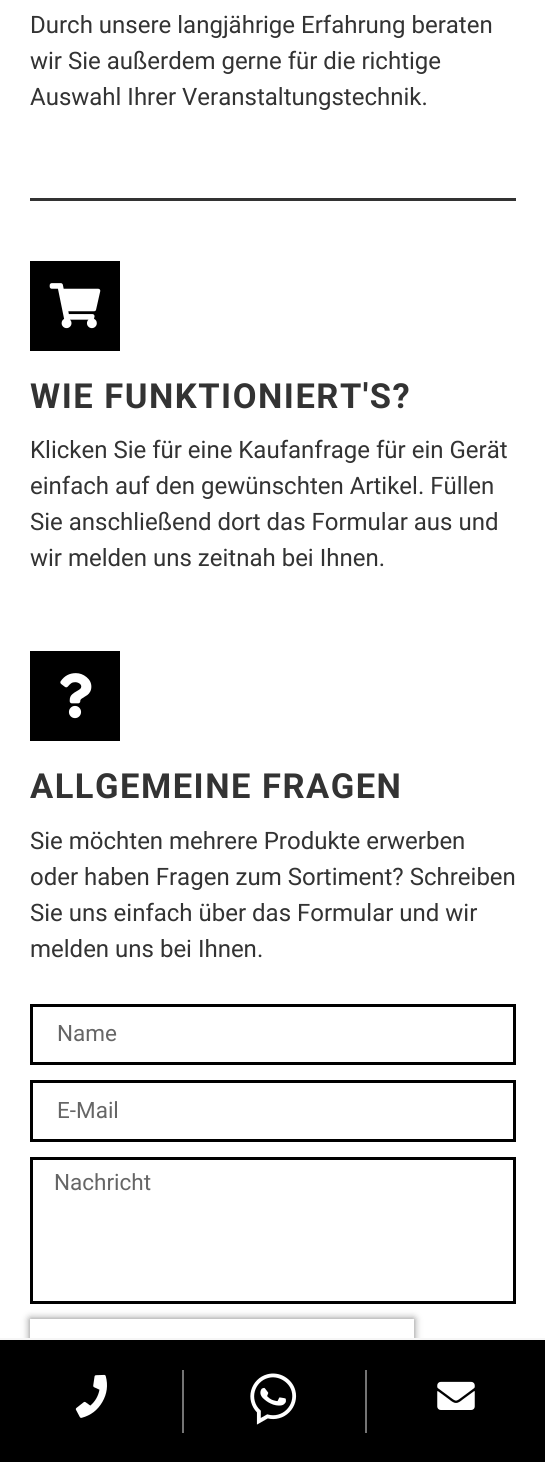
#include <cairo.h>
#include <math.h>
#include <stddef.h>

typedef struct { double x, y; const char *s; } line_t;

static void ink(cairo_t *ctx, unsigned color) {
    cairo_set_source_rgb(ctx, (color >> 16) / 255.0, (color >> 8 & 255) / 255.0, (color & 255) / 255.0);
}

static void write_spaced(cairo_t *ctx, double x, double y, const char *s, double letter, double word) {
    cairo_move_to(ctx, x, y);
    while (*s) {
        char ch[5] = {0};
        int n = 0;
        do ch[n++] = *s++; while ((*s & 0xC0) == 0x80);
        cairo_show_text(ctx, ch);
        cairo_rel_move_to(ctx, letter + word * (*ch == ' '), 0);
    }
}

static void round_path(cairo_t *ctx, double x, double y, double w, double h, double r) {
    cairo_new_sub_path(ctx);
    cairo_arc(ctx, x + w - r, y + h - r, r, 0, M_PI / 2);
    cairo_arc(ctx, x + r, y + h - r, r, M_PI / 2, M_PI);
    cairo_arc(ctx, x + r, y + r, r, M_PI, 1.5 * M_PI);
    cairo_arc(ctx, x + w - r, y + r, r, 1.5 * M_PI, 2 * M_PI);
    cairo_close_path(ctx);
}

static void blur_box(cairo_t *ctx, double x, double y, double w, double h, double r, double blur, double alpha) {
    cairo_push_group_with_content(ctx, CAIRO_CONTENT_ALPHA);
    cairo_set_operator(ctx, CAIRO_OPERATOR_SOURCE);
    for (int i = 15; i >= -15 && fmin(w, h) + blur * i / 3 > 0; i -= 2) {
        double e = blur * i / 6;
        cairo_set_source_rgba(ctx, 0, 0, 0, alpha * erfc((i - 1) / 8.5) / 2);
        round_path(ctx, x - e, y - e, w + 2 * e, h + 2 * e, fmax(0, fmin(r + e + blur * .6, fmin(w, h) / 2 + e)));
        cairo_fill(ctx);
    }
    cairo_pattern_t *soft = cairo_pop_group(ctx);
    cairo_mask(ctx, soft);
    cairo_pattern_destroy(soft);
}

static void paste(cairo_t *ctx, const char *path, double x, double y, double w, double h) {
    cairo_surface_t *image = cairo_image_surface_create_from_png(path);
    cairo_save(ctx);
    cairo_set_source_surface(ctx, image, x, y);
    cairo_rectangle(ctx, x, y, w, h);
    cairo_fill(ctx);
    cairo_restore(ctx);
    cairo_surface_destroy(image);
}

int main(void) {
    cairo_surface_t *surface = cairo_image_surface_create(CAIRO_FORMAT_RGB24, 545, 1462);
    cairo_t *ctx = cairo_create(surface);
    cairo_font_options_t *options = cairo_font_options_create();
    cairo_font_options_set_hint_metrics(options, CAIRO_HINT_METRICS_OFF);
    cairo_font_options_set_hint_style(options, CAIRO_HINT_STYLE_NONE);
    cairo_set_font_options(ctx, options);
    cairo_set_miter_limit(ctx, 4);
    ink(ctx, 0xFFFFFF);
    cairo_paint(ctx);
    cairo_select_font_face(ctx, "Roboto", CAIRO_FONT_SLANT_NORMAL, CAIRO_FONT_WEIGHT_NORMAL);
    cairo_set_font_size(ctx, 24);
    ink(ctx, 0x333333);
    {
        static const line_t items[] = {
            {30, 33, "Durch unsere langjährige Erfahrung beraten"},
            {30, 69, "wir Sie außerdem gerne für die richtige"},
            {30, 105, "Auswahl Ihrer Veranstaltungstechnik."},
        };
        for (size_t i = 0; i < sizeof items / sizeof *items; i++) {
            cairo_move_to(ctx, items[i].x, items[i].y);
            cairo_show_text(ctx, items[i].s);
        }
    }
    cairo_rectangle(ctx, 30, 198, 486, 3);
    cairo_fill(ctx);
    ink(ctx, 0x000000);
    cairo_rectangle(ctx, 30, 261, 90, 90);
    cairo_fill(ctx);
    paste(ctx, "media/1.png", 49, 283, 52, 46);
    cairo_select_font_face(ctx, "Roboto", CAIRO_FONT_SLANT_NORMAL, CAIRO_FONT_WEIGHT_BOLD);
    cairo_set_font_size(ctx, 34.5);
    ink(ctx, 0x333333);
    write_spaced(ctx, 30, 408, "WIE FUNKTIONIERT'S?", 1.5, 0);
    cairo_select_font_face(ctx, "Roboto", CAIRO_FONT_SLANT_NORMAL, CAIRO_FONT_WEIGHT_NORMAL);
    cairo_set_font_size(ctx, 24);
    {
        static const line_t items[] = {
            {30, 458, "Klicken Sie für eine Kaufanfrage für ein Gerät"},
            {30, 494, "einfach auf den gewünschten Artikel. Füllen"},
            {30, 530, "Sie anschließend dort das Formular aus und"},
            {30, 566, "wir melden uns zeitnah bei Ihnen."},
        };
        for (size_t i = 0; i < sizeof items / sizeof *items; i++) {
            cairo_move_to(ctx, items[i].x, items[i].y);
            cairo_show_text(ctx, items[i].s);
        }
    }
    ink(ctx, 0x000000);
    cairo_rectangle(ctx, 30, 651, 90, 90);
    cairo_fill(ctx);
    paste(ctx, "media/2.png", 60, 673, 32, 46);
    cairo_select_font_face(ctx, "Roboto", CAIRO_FONT_SLANT_NORMAL, CAIRO_FONT_WEIGHT_BOLD);
    cairo_set_font_size(ctx, 34.5);
    ink(ctx, 0x333333);
    write_spaced(ctx, 30, 798, "ALLGEMEINE FRAGEN", 1.5, 0);
    cairo_select_font_face(ctx, "Roboto", CAIRO_FONT_SLANT_NORMAL, CAIRO_FONT_WEIGHT_NORMAL);
    cairo_set_font_size(ctx, 24);
    {
        static const line_t items[] = {
            {30, 849, "Sie möchten mehrere Produkte erwerben"},
            {30, 885, "oder haben Fragen zum Sortiment? Schreiben"},
            {30, 921, "Sie uns einfach über das Formular und wir"},
            {30, 957, "melden uns bei Ihnen."},
        };
        for (size_t i = 0; i < sizeof items / sizeof *items; i++) {
            cairo_move_to(ctx, items[i].x, items[i].y);
            cairo_show_text(ctx, items[i].s);
        }
    }
    cairo_rectangle(ctx, 31.5, 1005.5, 483, 58);
    ink(ctx, 0x000000);
    cairo_set_line_width(ctx, 3);
    cairo_stroke(ctx);
    cairo_set_font_size(ctx, 22.5);
    ink(ctx, 0x666666);
    cairo_move_to(ctx, 57, 1041);
    cairo_show_text(ctx, "Name");
    cairo_rectangle(ctx, 31.5, 1081.5, 483, 59);
    ink(ctx, 0x000000);
    cairo_stroke(ctx);
    ink(ctx, 0x666666);
    cairo_move_to(ctx, 57, 1118);
    cairo_show_text(ctx, "E-Mail");
    cairo_rectangle(ctx, 31.5, 1158.5, 483, 144);
    ink(ctx, 0x000000);
    cairo_stroke(ctx);
    ink(ctx, 0x666666);
    cairo_move_to(ctx, 54, 1190);
    cairo_show_text(ctx, "Nachricht");
    cairo_save(ctx);
    cairo_set_fill_rule(ctx, CAIRO_FILL_RULE_EVEN_ODD);
    cairo_new_path(ctx);
    cairo_move_to(ctx, 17, 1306);
    cairo_line_to(ctx, 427, 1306);
    cairo_line_to(ctx, 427, 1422);
    cairo_line_to(ctx, 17, 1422);
    cairo_close_path(ctx);
    cairo_move_to(ctx, 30, 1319);
    cairo_line_to(ctx, 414, 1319);
    cairo_line_to(ctx, 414, 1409);
    cairo_line_to(ctx, 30, 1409);
    cairo_close_path(ctx);
    cairo_clip(ctx);
    ink(ctx, 0x808080);
    blur_box(ctx, 30, 1319, 384, 90, 0, 4, 1);
    cairo_restore(ctx);
    ink(ctx, 0x000000);
    cairo_rectangle(ctx, 0, 1340, 545, 122);
    cairo_fill(ctx);
    ink(ctx, 0xF6F6F6);
    cairo_rectangle(ctx, 0, 1338, 545, 2);
    cairo_fill(ctx);
    paste(ctx, "media/3.png", 75, 1374, 32, 44);
    ink(ctx, 0x747474);
    cairo_rectangle(ctx, 182, 1370, 2, 63);
    cairo_fill(ctx);
    paste(ctx, "media/4.png", 250, 1373, 47, 52);
    cairo_rectangle(ctx, 365, 1370, 2, 63);
    cairo_fill(ctx);
    paste(ctx, "media/5.png", 437, 1381, 38, 29);
    cairo_surface_write_to_png(surface, "image.png");
    cairo_font_options_destroy(options);
    cairo_destroy(ctx);
    cairo_surface_destroy(surface);
    return 0;
}
